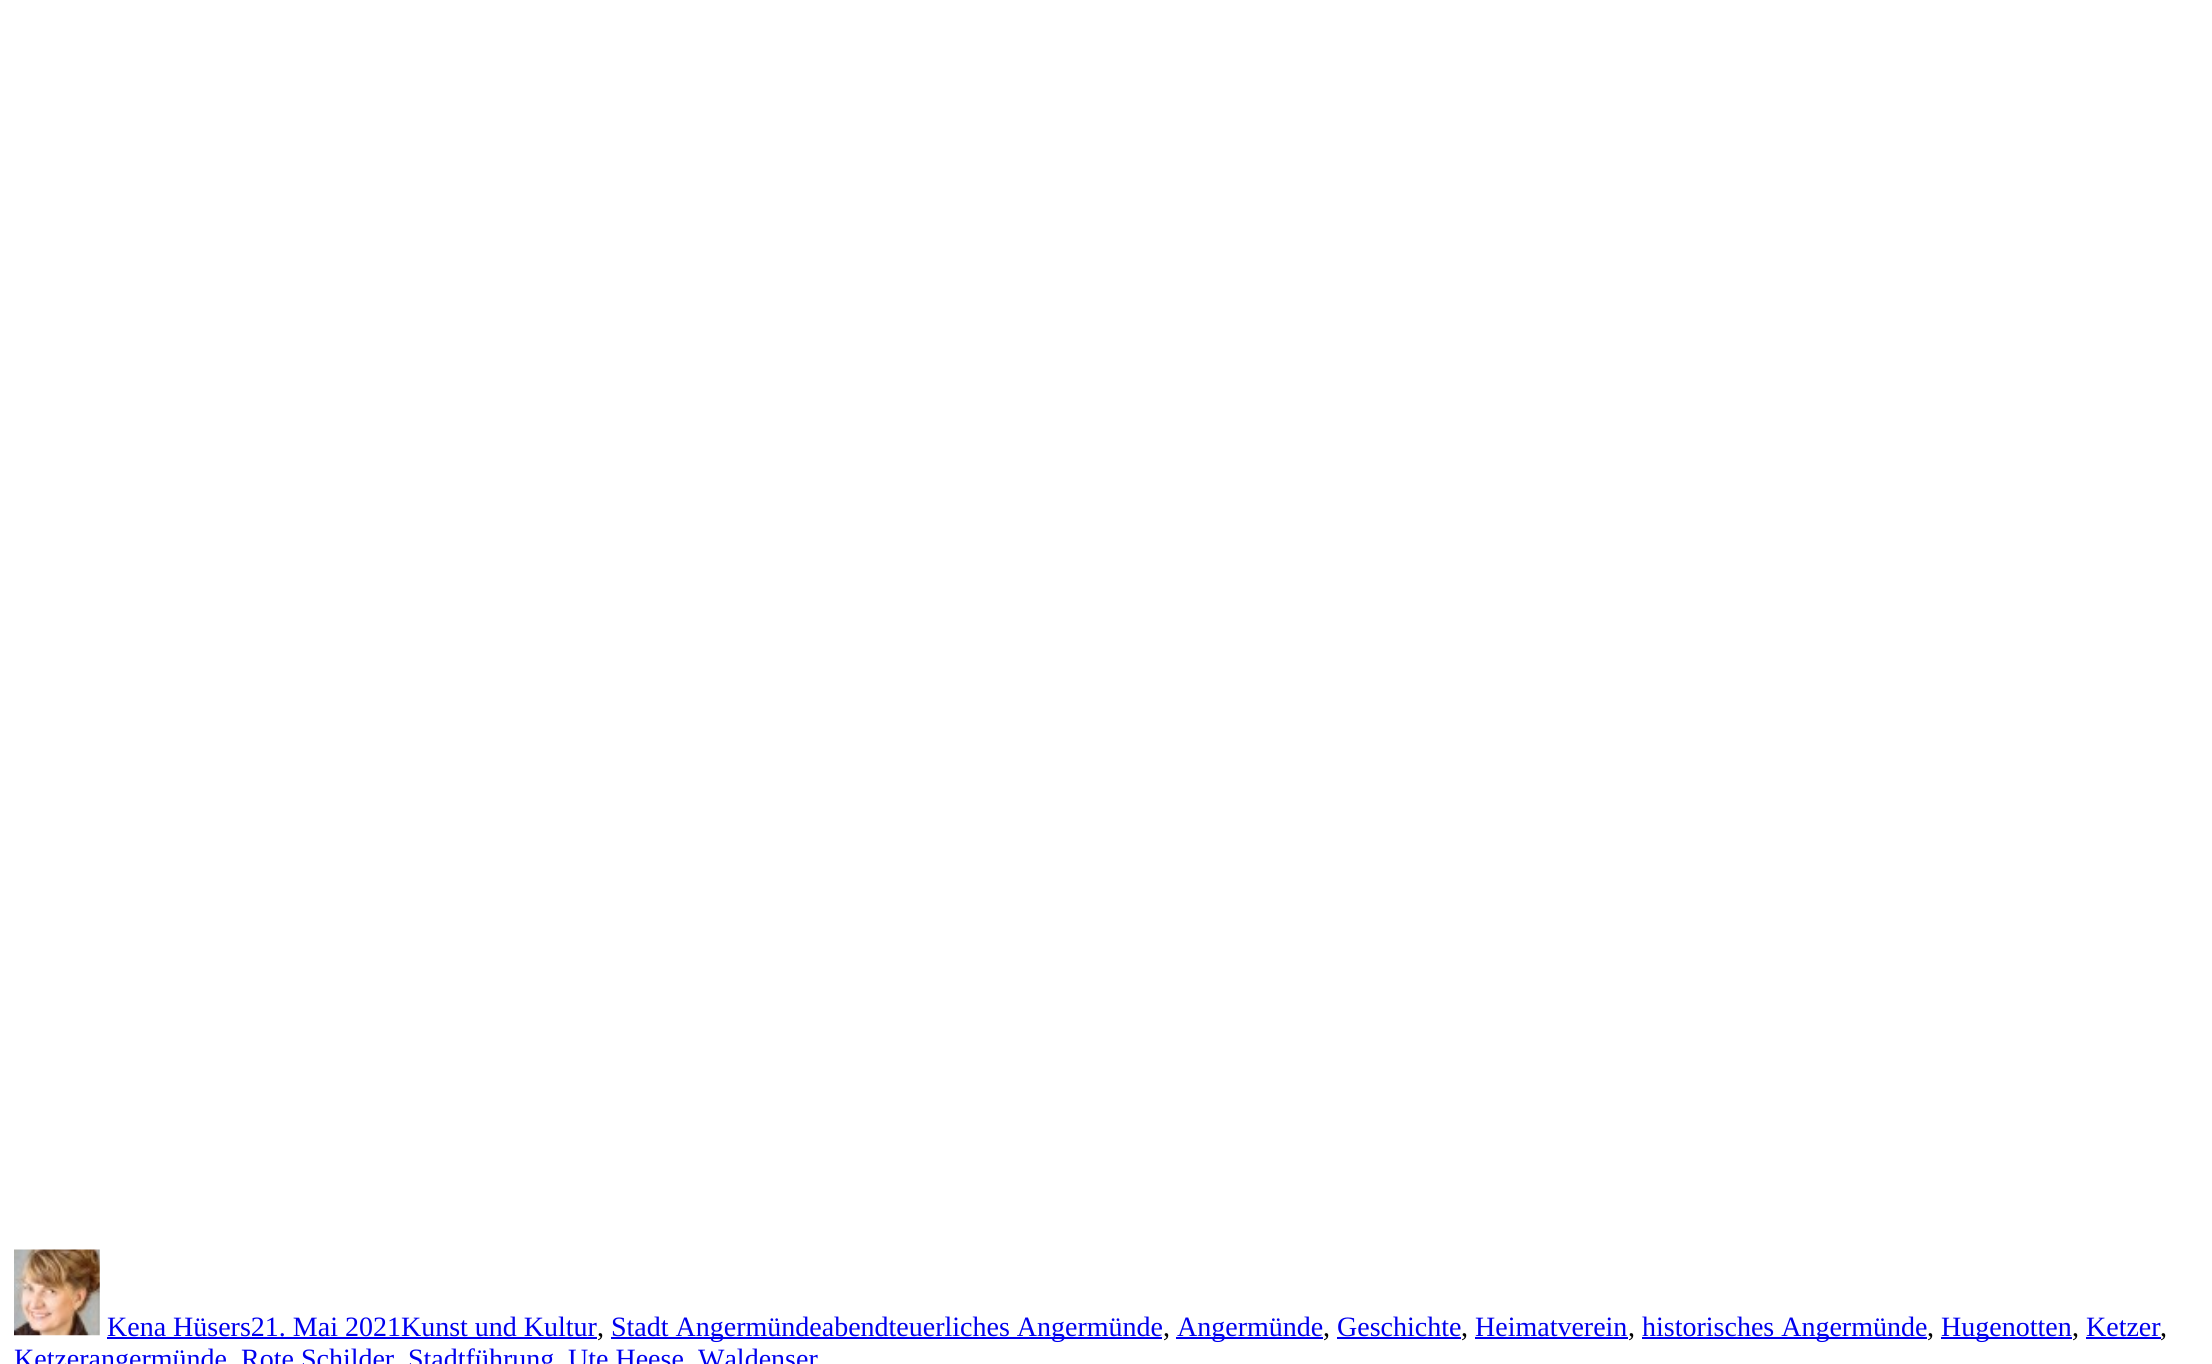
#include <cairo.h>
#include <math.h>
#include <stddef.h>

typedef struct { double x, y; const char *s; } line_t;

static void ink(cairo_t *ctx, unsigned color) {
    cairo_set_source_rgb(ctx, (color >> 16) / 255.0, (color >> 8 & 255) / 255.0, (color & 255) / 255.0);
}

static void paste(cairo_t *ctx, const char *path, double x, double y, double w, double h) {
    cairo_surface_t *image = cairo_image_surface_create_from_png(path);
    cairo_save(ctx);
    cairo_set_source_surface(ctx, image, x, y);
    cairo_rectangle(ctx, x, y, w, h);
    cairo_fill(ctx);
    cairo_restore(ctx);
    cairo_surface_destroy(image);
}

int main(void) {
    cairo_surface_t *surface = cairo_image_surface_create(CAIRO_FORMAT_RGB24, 2212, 1364);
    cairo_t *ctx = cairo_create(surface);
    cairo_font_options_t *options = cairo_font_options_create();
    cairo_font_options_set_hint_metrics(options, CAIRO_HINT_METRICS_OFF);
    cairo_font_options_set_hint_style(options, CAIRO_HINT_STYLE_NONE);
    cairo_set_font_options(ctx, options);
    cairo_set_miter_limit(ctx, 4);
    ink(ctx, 0xFFFFFF);
    cairo_paint(ctx);
    paste(ctx, "media/1.png", 14, 1249, 86, 87);
    cairo_select_font_face(ctx, "Liberation Serif", CAIRO_FONT_SLANT_NORMAL, CAIRO_FONT_WEIGHT_NORMAL);
    cairo_set_font_size(ctx, 28);
    ink(ctx, 0x0000EE);
    cairo_move_to(ctx, 107, 1336);
    cairo_show_text(ctx, "Kena Hüsers21. Mai 2021Kunst und Kultur");
    cairo_rectangle(ctx, 107, 1337, 490, 2);
    cairo_fill(ctx);
    ink(ctx, 0x000000);
    cairo_move_to(ctx, 597, 1336);
    cairo_show_text(ctx, ",");
    ink(ctx, 0x0000EE);
    cairo_rectangle(ctx, 611, 1337, 551, 2);
    cairo_fill(ctx);
    cairo_move_to(ctx, 611, 1336);
    cairo_show_text(ctx, "Stadt Angermündeabendteuerliches Angermünde");
    ink(ctx, 0x000000);
    cairo_move_to(ctx, 1163, 1336);
    cairo_show_text(ctx, ",");
    ink(ctx, 0x0000EE);
    cairo_rectangle(ctx, 1176, 1337, 147, 2);
    cairo_fill(ctx);
    cairo_move_to(ctx, 1177, 1336);
    cairo_show_text(ctx, "Angermünde");
    ink(ctx, 0x000000);
    cairo_move_to(ctx, 1323, 1336);
    cairo_show_text(ctx, ",");
    ink(ctx, 0x0000EE);
    cairo_move_to(ctx, 1337, 1336);
    cairo_show_text(ctx, "Geschichte");
    ink(ctx, 0x000000);
    cairo_move_to(ctx, 1461, 1336);
    cairo_show_text(ctx, ",");
    ink(ctx, 0x0000EE);
    cairo_rectangle(ctx, 1337, 1337, 124, 2);
    cairo_fill(ctx);
    cairo_move_to(ctx, 1475, 1336);
    cairo_show_text(ctx, "Heimatverein");
    ink(ctx, 0x000000);
    cairo_move_to(ctx, 1628, 1336);
    cairo_show_text(ctx, ",");
    ink(ctx, 0x0000EE);
    cairo_rectangle(ctx, 1475, 1337, 153, 2);
    cairo_fill(ctx);
    cairo_rectangle(ctx, 1642, 1337, 285, 2);
    cairo_fill(ctx);
    cairo_move_to(ctx, 1642, 1336);
    cairo_show_text(ctx, "historisches Angermünde");
    ink(ctx, 0x000000);
    cairo_move_to(ctx, 1927, 1336);
    cairo_show_text(ctx, ",");
    ink(ctx, 0x0000EE);
    cairo_rectangle(ctx, 1941, 1337, 131, 2);
    cairo_fill(ctx);
    cairo_move_to(ctx, 1941, 1336);
    cairo_show_text(ctx, "Hugenotten");
    ink(ctx, 0x000000);
    cairo_move_to(ctx, 2072, 1336);
    cairo_show_text(ctx, ",");
    ink(ctx, 0x0000EE);
    cairo_move_to(ctx, 2086, 1336);
    cairo_show_text(ctx, "Ketzer");
    ink(ctx, 0x000000);
    cairo_move_to(ctx, 2160, 1336);
    cairo_show_text(ctx, ",");
    ink(ctx, 0x0000EE);
    cairo_rectangle(ctx, 2086, 1337, 75, 2);
    cairo_fill(ctx);
    {
        static const line_t items[] = {
            {14, 1368, "Ketzerangermünde"},
            {241, 1368, "Rote Schilder"},
            {408, 1368, "Stadtführung"},
            {568, 1368, "Ute Heese"},
            {698, 1368, "Waldenser"},
        };
        for (size_t i = 0; i < sizeof items / sizeof *items; i++) {
            cairo_move_to(ctx, items[i].x, items[i].y);
            cairo_show_text(ctx, items[i].s);
        }
    }
    cairo_surface_write_to_png(surface, "image.png");
    cairo_font_options_destroy(options);
    cairo_destroy(ctx);
    cairo_surface_destroy(surface);
    return 0;
}
